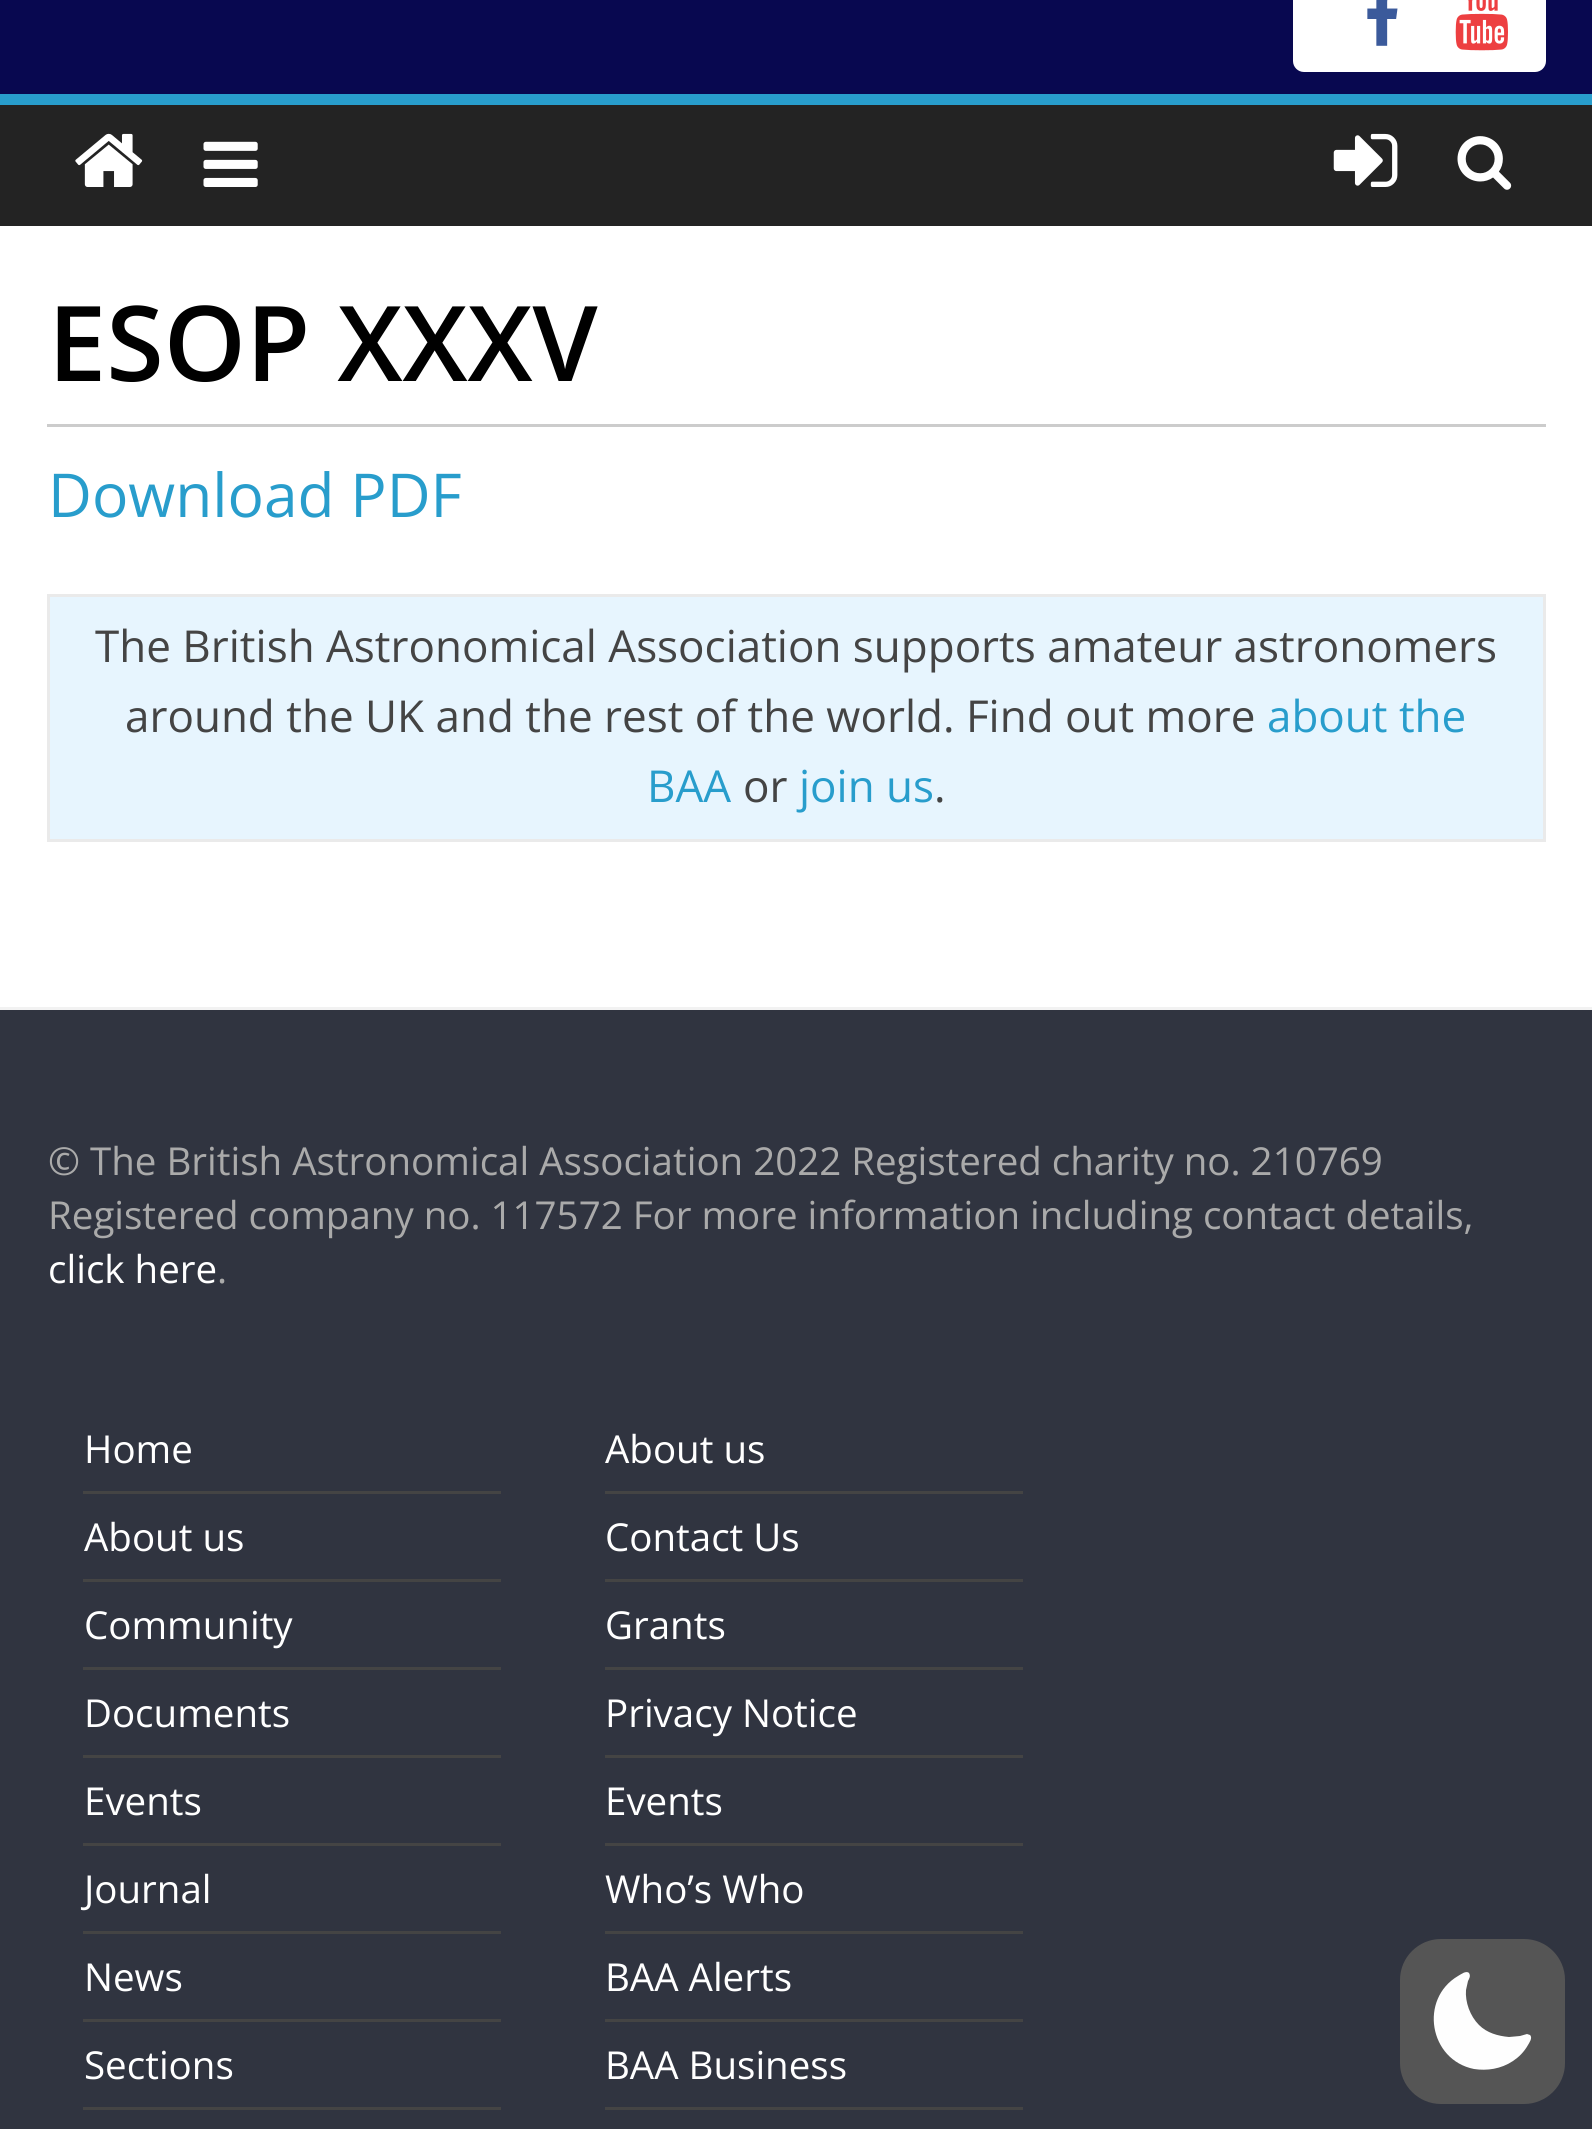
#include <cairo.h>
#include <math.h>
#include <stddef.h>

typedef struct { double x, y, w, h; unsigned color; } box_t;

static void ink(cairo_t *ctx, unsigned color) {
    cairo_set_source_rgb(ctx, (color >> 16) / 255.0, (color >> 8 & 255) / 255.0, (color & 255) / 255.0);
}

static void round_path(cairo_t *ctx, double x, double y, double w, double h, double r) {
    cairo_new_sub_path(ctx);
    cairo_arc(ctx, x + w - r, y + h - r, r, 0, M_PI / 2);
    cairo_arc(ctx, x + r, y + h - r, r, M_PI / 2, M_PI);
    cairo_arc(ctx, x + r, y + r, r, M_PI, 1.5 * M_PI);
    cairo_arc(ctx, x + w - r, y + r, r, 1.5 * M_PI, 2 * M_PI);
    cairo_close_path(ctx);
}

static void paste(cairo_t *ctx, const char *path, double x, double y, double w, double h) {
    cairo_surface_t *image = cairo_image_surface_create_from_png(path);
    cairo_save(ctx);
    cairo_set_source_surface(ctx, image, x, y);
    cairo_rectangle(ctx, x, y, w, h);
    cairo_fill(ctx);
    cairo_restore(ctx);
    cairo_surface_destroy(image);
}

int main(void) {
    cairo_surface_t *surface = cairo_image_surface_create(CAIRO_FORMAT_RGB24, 1592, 2129);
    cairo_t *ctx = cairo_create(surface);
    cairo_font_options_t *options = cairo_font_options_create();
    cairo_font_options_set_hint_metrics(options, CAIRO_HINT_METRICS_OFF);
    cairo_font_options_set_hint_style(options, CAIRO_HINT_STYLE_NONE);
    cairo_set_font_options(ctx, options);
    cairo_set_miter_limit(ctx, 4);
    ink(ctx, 0x080850);
    cairo_paint(ctx);
    ink(ctx, 0xFFFFFF);
    round_path(ctx, 1293, -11, 253, 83, 11);
    cairo_fill(ctx);
    paste(ctx, "media/1.png", 1367, 0, 31, 46);
    paste(ctx, "media/2.png", 1455, 0, 53, 51);
    ink(ctx, 0x232323);
    cairo_rectangle(ctx, 0, 105, 1592, 121);
    cairo_fill(ctx);
    ink(ctx, 0x289DCC);
    cairo_rectangle(ctx, 0, 94, 1592, 11);
    cairo_fill(ctx);
    paste(ctx, "media/3.png", 75, 133, 68, 54);
    paste(ctx, "media/4.png", 203, 141, 55, 46);
    paste(ctx, "media/5.png", 1333, 133, 65, 54);
    paste(ctx, "media/6.png", 1457, 136, 55, 54);
    ink(ctx, 0xFFFFFF);
    cairo_rectangle(ctx, 0, 226, 1592, 781);
    cairo_fill(ctx);
    ink(ctx, 0xCCCCCC);
    cairo_rectangle(ctx, 47, 424, 1499, 3);
    cairo_fill(ctx);
    cairo_select_font_face(ctx, "Open Sans SemiBold", CAIRO_FONT_SLANT_NORMAL, CAIRO_FONT_WEIGHT_NORMAL);
    cairo_set_font_size(ctx, 104.5);
    ink(ctx, 0x000000);
    cairo_move_to(ctx, 48, 381);
    cairo_show_text(ctx, "ESOP XXXV");
    cairo_select_font_face(ctx, "Open Sans", CAIRO_FONT_SLANT_NORMAL, CAIRO_FONT_WEIGHT_NORMAL);
    cairo_set_font_size(ctx, 60.5);
    ink(ctx, 0x289DCC);
    cairo_move_to(ctx, 48, 517);
    cairo_show_text(ctx, "Download PDF");
    {
        static const box_t items[] = {
            {50, 597, 1493, 242, 0xE7F5FE},
            {47, 594, 1499, 3, 0xEAEAEA},
            {1543, 594, 3, 248, 0xEAEAEA},
            {47, 839, 1499, 3, 0xEAEAEA},
            {47, 594, 3, 248, 0xEAEAEA},
        };
        for (size_t i = 0; i < sizeof items / sizeof *items; i++) {
            ink(ctx, items[i].color);
            cairo_rectangle(ctx, items[i].x, items[i].y, items[i].w, items[i].h);
            cairo_fill(ctx);
        }
    }
    cairo_set_font_size(ctx, 44);
    ink(ctx, 0x444444);
    cairo_move_to(ctx, 95, 662);
    cairo_show_text(ctx, "The British Astronomical Association supports amateur astronomers");
    cairo_move_to(ctx, 125, 732);
    cairo_show_text(ctx, "around the UK and the rest of the world. Find out more");
    ink(ctx, 0x289DCC);
    cairo_move_to(ctx, 1267, 732);
    cairo_show_text(ctx, "about the");
    cairo_move_to(ctx, 647, 802);
    cairo_show_text(ctx, "BAA");
    ink(ctx, 0x444444);
    cairo_move_to(ctx, 743, 802);
    cairo_show_text(ctx, "or");
    ink(ctx, 0x289DCC);
    cairo_move_to(ctx, 799, 802);
    cairo_show_text(ctx, "join us");
    ink(ctx, 0x444444);
    cairo_move_to(ctx, 934, 802);
    cairo_show_text(ctx, ".");
    ink(ctx, 0x303440);
    cairo_rectangle(ctx, 0, 1010, 1592, 1119);
    cairo_fill(ctx);
    ink(ctx, 0xF2F2F2);
    cairo_rectangle(ctx, 0, 1007, 1592, 3);
    cairo_fill(ctx);
    cairo_set_font_size(ctx, 38.5);
    ink(ctx, 0xAAAAAA);
    cairo_move_to(ctx, 48, 1175);
    cairo_show_text(ctx, "© The British Astronomical Association 2022 Registered charity no. 210769");
    cairo_move_to(ctx, 48, 1229);
    cairo_show_text(ctx, "Registered company no. 117572 For more information including contact details,");
    ink(ctx, 0xFFFFFF);
    cairo_move_to(ctx, 48, 1283);
    cairo_show_text(ctx, "click here");
    ink(ctx, 0xAAAAAA);
    cairo_move_to(ctx, 217, 1283);
    cairo_show_text(ctx, ".");
    ink(ctx, 0x444444);
    cairo_rectangle(ctx, 83, 1491, 418, 3);
    cairo_fill(ctx);
    ink(ctx, 0xFFFFFF);
    cairo_move_to(ctx, 84, 1463);
    cairo_show_text(ctx, "Home");
    ink(ctx, 0x444444);
    cairo_rectangle(ctx, 83, 1579, 418, 3);
    cairo_fill(ctx);
    ink(ctx, 0xFFFFFF);
    cairo_move_to(ctx, 84, 1551);
    cairo_show_text(ctx, "About us");
    ink(ctx, 0x444444);
    cairo_rectangle(ctx, 83, 1667, 418, 3);
    cairo_fill(ctx);
    ink(ctx, 0xFFFFFF);
    cairo_move_to(ctx, 84, 1639);
    cairo_show_text(ctx, "Community");
    ink(ctx, 0x444444);
    cairo_rectangle(ctx, 83, 1755, 418, 3);
    cairo_fill(ctx);
    ink(ctx, 0xFFFFFF);
    cairo_move_to(ctx, 84, 1727);
    cairo_show_text(ctx, "Documents");
    ink(ctx, 0x444444);
    cairo_rectangle(ctx, 83, 1843, 418, 3);
    cairo_fill(ctx);
    ink(ctx, 0xFFFFFF);
    cairo_move_to(ctx, 84, 1815);
    cairo_show_text(ctx, "Events");
    ink(ctx, 0x444444);
    cairo_rectangle(ctx, 83, 1931, 418, 3);
    cairo_fill(ctx);
    ink(ctx, 0xFFFFFF);
    cairo_move_to(ctx, 84, 1903);
    cairo_show_text(ctx, "Journal");
    ink(ctx, 0x444444);
    cairo_rectangle(ctx, 83, 2019, 418, 3);
    cairo_fill(ctx);
    ink(ctx, 0xFFFFFF);
    cairo_move_to(ctx, 84, 1991);
    cairo_show_text(ctx, "News");
    ink(ctx, 0x444444);
    cairo_rectangle(ctx, 83, 2107, 418, 3);
    cairo_fill(ctx);
    ink(ctx, 0xFFFFFF);
    cairo_move_to(ctx, 84, 2079);
    cairo_show_text(ctx, "Sections");
    ink(ctx, 0x444444);
    cairo_rectangle(ctx, 605, 1491, 418, 3);
    cairo_fill(ctx);
    ink(ctx, 0xFFFFFF);
    cairo_move_to(ctx, 605, 1463);
    cairo_show_text(ctx, "About us");
    ink(ctx, 0x444444);
    cairo_rectangle(ctx, 605, 1579, 418, 3);
    cairo_fill(ctx);
    ink(ctx, 0xFFFFFF);
    cairo_move_to(ctx, 605, 1551);
    cairo_show_text(ctx, "Contact Us");
    ink(ctx, 0x444444);
    cairo_rectangle(ctx, 605, 1667, 418, 3);
    cairo_fill(ctx);
    ink(ctx, 0xFFFFFF);
    cairo_move_to(ctx, 605, 1639);
    cairo_show_text(ctx, "Grants");
    ink(ctx, 0x444444);
    cairo_rectangle(ctx, 605, 1755, 418, 3);
    cairo_fill(ctx);
    ink(ctx, 0xFFFFFF);
    cairo_move_to(ctx, 605, 1727);
    cairo_show_text(ctx, "Privacy Notice");
    ink(ctx, 0x444444);
    cairo_rectangle(ctx, 605, 1843, 418, 3);
    cairo_fill(ctx);
    ink(ctx, 0xFFFFFF);
    cairo_move_to(ctx, 605, 1815);
    cairo_show_text(ctx, "Events");
    ink(ctx, 0x444444);
    cairo_rectangle(ctx, 605, 1931, 418, 3);
    cairo_fill(ctx);
    ink(ctx, 0xFFFFFF);
    cairo_move_to(ctx, 605, 1903);
    cairo_show_text(ctx, "Who’s Who");
    ink(ctx, 0x444444);
    cairo_rectangle(ctx, 605, 2019, 418, 3);
    cairo_fill(ctx);
    ink(ctx, 0xFFFFFF);
    cairo_move_to(ctx, 605, 1991);
    cairo_show_text(ctx, "BAA Alerts");
    ink(ctx, 0x444444);
    cairo_rectangle(ctx, 605, 2107, 418, 3);
    cairo_fill(ctx);
    ink(ctx, 0xFFFFFF);
    cairo_move_to(ctx, 605, 2079);
    cairo_show_text(ctx, "BAA Business");
    ink(ctx, 0x555555);
    round_path(ctx, 1400, 1939, 165, 165, 41);
    cairo_fill(ctx);
    ink(ctx, 0xFEFEFE);
    cairo_set_fill_rule(ctx, CAIRO_FILL_RULE_EVEN_ODD);
    cairo_new_path(ctx);
    cairo_move_to(ctx, 1469, 1973);
    cairo_curve_to(ctx, 1471, 1976, 1469, 1979, 1468, 1981);
    cairo_line_to(ctx, 1466, 1990);
    cairo_curve_to(ctx, 1465, 2002, 1470, 2016, 1479, 2025);
    cairo_curve_to(ctx, 1487, 2033, 1498, 2036, 1509, 2037);
    cairo_line_to(ctx, 1520, 2036);
    cairo_line_to(ctx, 1527, 2034);
    cairo_line_to(ctx, 1530, 2035);
    cairo_curve_to(ctx, 1533, 2038, 1529, 2043, 1528, 2045);
    cairo_curve_to(ctx, 1524, 2052, 1519, 2057, 1513, 2061);
    cairo_curve_to(ctx, 1501, 2069, 1487, 2071, 1474, 2069);
    cairo_curve_to(ctx, 1429, 2060, 1419, 1999, 1458, 1976);
    cairo_curve_to(ctx, 1460, 1975, 1466, 1970, 1469, 1973);
    cairo_close_path(ctx);
    cairo_fill(ctx);
    cairo_surface_write_to_png(surface, "image.png");
    cairo_font_options_destroy(options);
    cairo_destroy(ctx);
    cairo_surface_destroy(surface);
    return 0;
}
